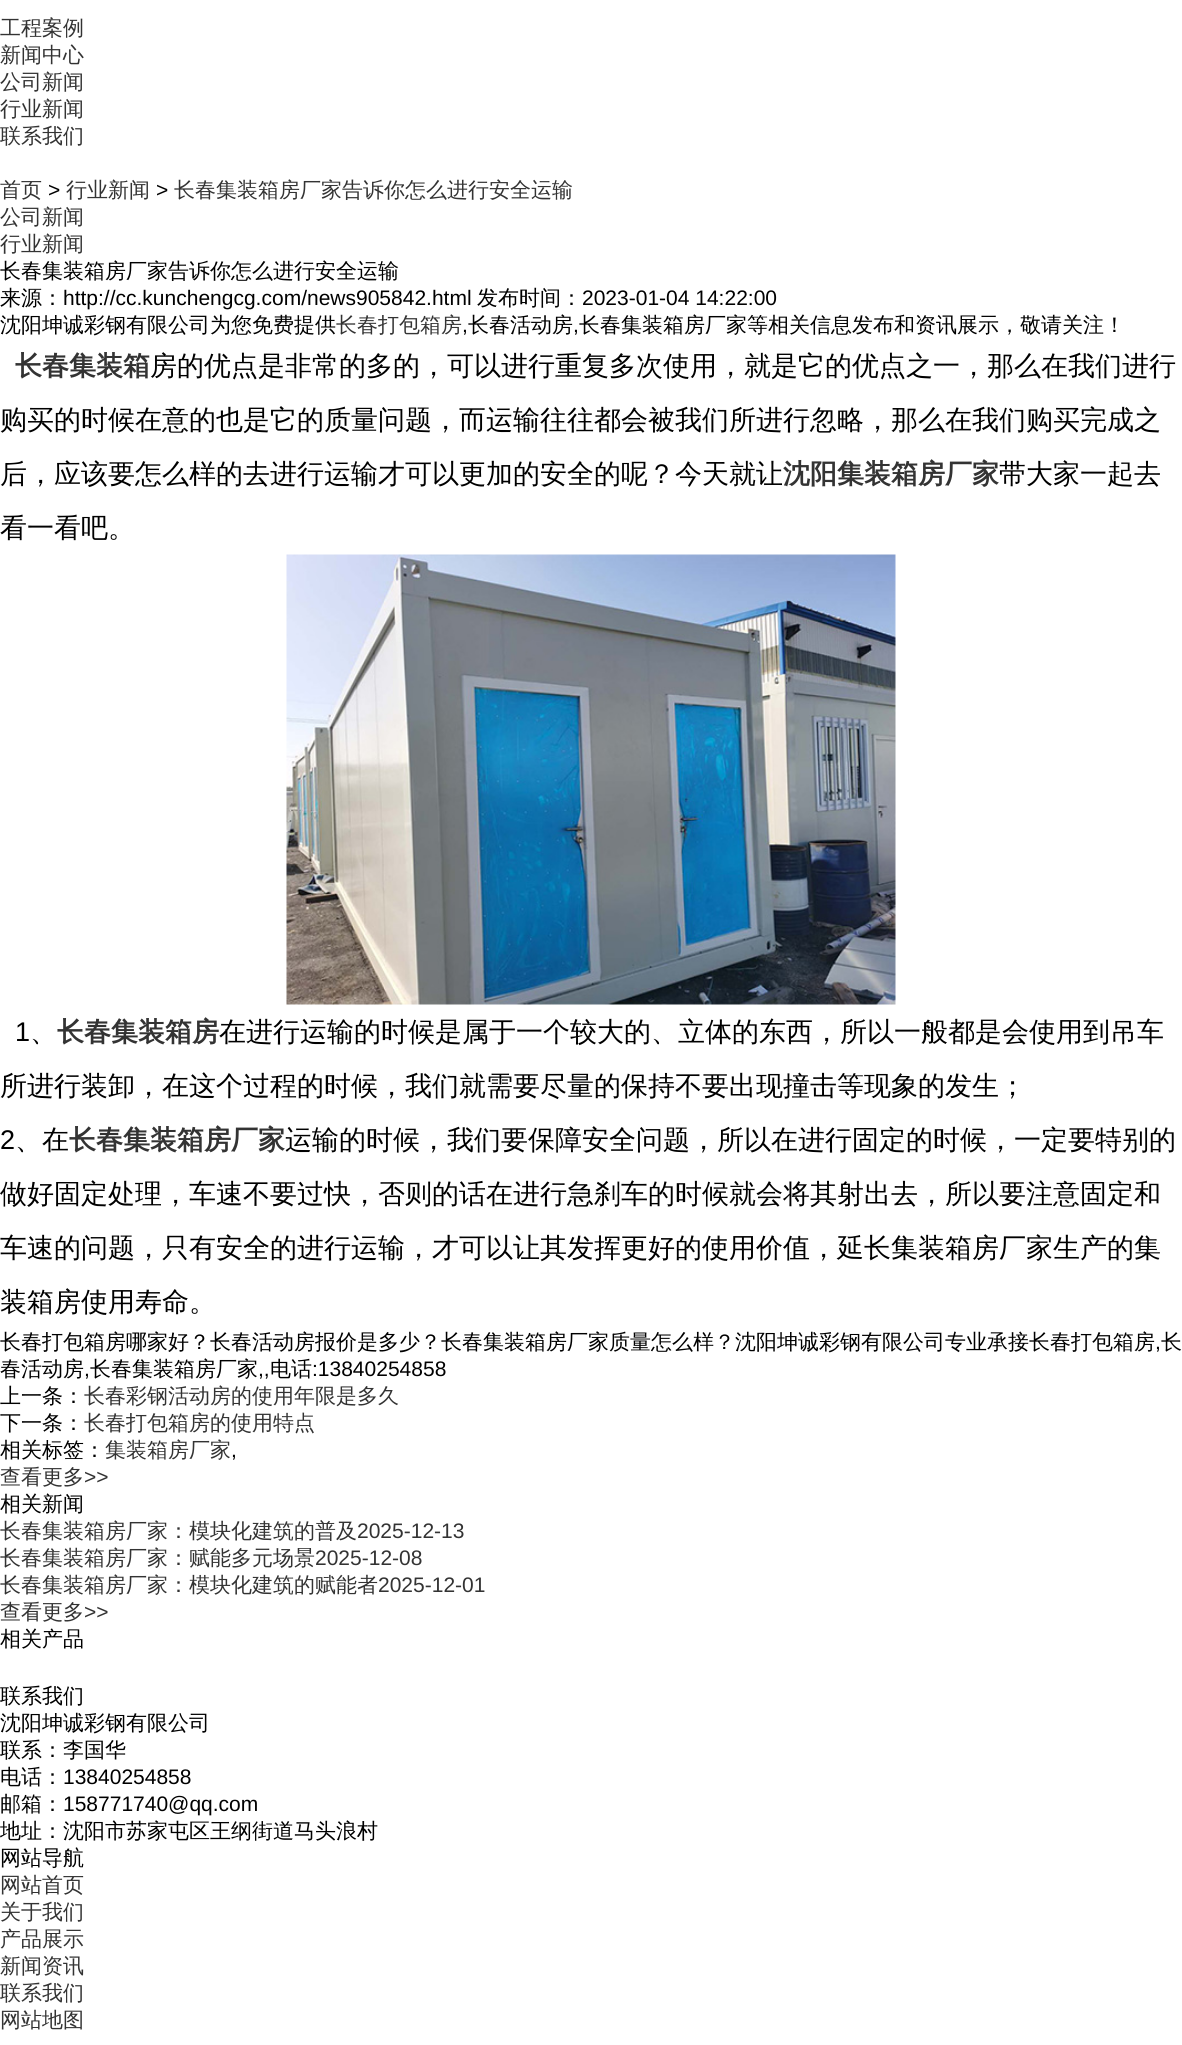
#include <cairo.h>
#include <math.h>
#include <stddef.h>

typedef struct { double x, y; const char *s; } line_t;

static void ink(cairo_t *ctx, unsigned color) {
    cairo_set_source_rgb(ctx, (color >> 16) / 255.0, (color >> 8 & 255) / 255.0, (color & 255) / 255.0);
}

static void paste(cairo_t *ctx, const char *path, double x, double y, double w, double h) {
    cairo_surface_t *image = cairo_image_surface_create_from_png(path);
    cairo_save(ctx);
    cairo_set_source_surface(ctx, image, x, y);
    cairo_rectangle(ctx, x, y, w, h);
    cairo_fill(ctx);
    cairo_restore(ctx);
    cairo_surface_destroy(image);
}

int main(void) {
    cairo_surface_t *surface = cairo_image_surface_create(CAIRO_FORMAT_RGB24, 1182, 2045);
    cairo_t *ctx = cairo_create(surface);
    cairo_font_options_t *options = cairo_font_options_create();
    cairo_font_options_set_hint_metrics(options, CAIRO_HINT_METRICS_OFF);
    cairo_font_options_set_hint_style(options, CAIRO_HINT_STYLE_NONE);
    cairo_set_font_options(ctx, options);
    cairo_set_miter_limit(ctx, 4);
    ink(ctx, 0xFFFFFF);
    cairo_paint(ctx);
    cairo_select_font_face(ctx, "WenQuanYi Zen Hei Medium", CAIRO_FONT_SLANT_NORMAL, CAIRO_FONT_WEIGHT_NORMAL);
    cairo_set_font_size(ctx, 21);
    ink(ctx, 0x333333);
    {
        static const line_t items[] = {
            {0, 35, "工程案例"},
            {0, 62, "新闻中心"},
            {0, 89, "公司新闻"},
            {0, 116, "行业新闻"},
            {0, 143, "联系我们"},
            {0, 197, "首页"},
        };
        for (size_t i = 0; i < sizeof items / sizeof *items; i++) {
            cairo_move_to(ctx, items[i].x, items[i].y);
            cairo_show_text(ctx, items[i].s);
        }
    }
    cairo_select_font_face(ctx, "Liberation Sans", CAIRO_FONT_SLANT_NORMAL, CAIRO_FONT_WEIGHT_NORMAL);
    ink(ctx, 0x000000);
    cairo_move_to(ctx, 48, 197);
    cairo_show_text(ctx, ">");
    cairo_select_font_face(ctx, "WenQuanYi Zen Hei Medium", CAIRO_FONT_SLANT_NORMAL, CAIRO_FONT_WEIGHT_NORMAL);
    ink(ctx, 0x333333);
    cairo_move_to(ctx, 66, 197);
    cairo_show_text(ctx, "行业新闻");
    cairo_select_font_face(ctx, "Liberation Sans", CAIRO_FONT_SLANT_NORMAL, CAIRO_FONT_WEIGHT_NORMAL);
    ink(ctx, 0x000000);
    cairo_move_to(ctx, 156, 197);
    cairo_show_text(ctx, ">");
    cairo_select_font_face(ctx, "WenQuanYi Zen Hei Medium", CAIRO_FONT_SLANT_NORMAL, CAIRO_FONT_WEIGHT_NORMAL);
    ink(ctx, 0x333333);
    {
        static const line_t items[] = {
            {174, 197, "长春集装箱房厂家告诉你怎么进行安全运输"},
            {0, 224, "公司新闻"},
            {0, 251, "行业新闻"},
        };
        for (size_t i = 0; i < sizeof items / sizeof *items; i++) {
            cairo_move_to(ctx, items[i].x, items[i].y);
            cairo_show_text(ctx, items[i].s);
        }
    }
    ink(ctx, 0x000000);
    cairo_move_to(ctx, 0, 278);
    cairo_show_text(ctx, "长春集装箱房厂家告诉你怎么进行安全运输");
    cairo_move_to(ctx, 0, 305);
    cairo_show_text(ctx, "来源：");
    cairo_select_font_face(ctx, "Liberation Sans", CAIRO_FONT_SLANT_NORMAL, CAIRO_FONT_WEIGHT_NORMAL);
    cairo_move_to(ctx, 63, 305);
    cairo_show_text(ctx, "http://cc.kunchengcg.com/news905842.html");
    cairo_select_font_face(ctx, "WenQuanYi Zen Hei Medium", CAIRO_FONT_SLANT_NORMAL, CAIRO_FONT_WEIGHT_NORMAL);
    cairo_move_to(ctx, 477, 305);
    cairo_show_text(ctx, "发布时间：");
    cairo_select_font_face(ctx, "Liberation Sans", CAIRO_FONT_SLANT_NORMAL, CAIRO_FONT_WEIGHT_NORMAL);
    cairo_move_to(ctx, 582, 305);
    cairo_show_text(ctx, "2023-01-04 14:22:00");
    cairo_select_font_face(ctx, "WenQuanYi Zen Hei Medium", CAIRO_FONT_SLANT_NORMAL, CAIRO_FONT_WEIGHT_NORMAL);
    cairo_move_to(ctx, 0, 332);
    cairo_show_text(ctx, "沈阳坤诚彩钢有限公司为您免费提供");
    ink(ctx, 0x333333);
    cairo_move_to(ctx, 336, 332);
    cairo_show_text(ctx, "长春打包箱房");
    cairo_select_font_face(ctx, "Liberation Sans", CAIRO_FONT_SLANT_NORMAL, CAIRO_FONT_WEIGHT_NORMAL);
    ink(ctx, 0x000000);
    cairo_move_to(ctx, 462, 332);
    cairo_show_text(ctx, ",");
    cairo_select_font_face(ctx, "WenQuanYi Zen Hei Medium", CAIRO_FONT_SLANT_NORMAL, CAIRO_FONT_WEIGHT_NORMAL);
    cairo_move_to(ctx, 468, 332);
    cairo_show_text(ctx, "长春活动房");
    cairo_select_font_face(ctx, "Liberation Sans", CAIRO_FONT_SLANT_NORMAL, CAIRO_FONT_WEIGHT_NORMAL);
    cairo_move_to(ctx, 573, 332);
    cairo_show_text(ctx, ",");
    cairo_select_font_face(ctx, "WenQuanYi Zen Hei Medium", CAIRO_FONT_SLANT_NORMAL, CAIRO_FONT_WEIGHT_NORMAL);
    cairo_move_to(ctx, 579, 332);
    cairo_show_text(ctx, "长春集装箱房厂家等相关信息发布和资讯展示，敬请关注！");
    cairo_select_font_face(ctx, "WenQuanYi Zen Hei", CAIRO_FONT_SLANT_NORMAL, CAIRO_FONT_WEIGHT_BOLD);
    cairo_set_font_size(ctx, 27);
    ink(ctx, 0x333333);
    cairo_move_to(ctx, 15, 375);
    cairo_show_text(ctx, "长春集装箱");
    cairo_select_font_face(ctx, "WenQuanYi Zen Hei Medium", CAIRO_FONT_SLANT_NORMAL, CAIRO_FONT_WEIGHT_NORMAL);
    ink(ctx, 0x000000);
    {
        static const line_t items[] = {
            {150, 375, "房的优点是非常的多的，可以进行重复多次使用，就是它的优点之一，那么在我们进行"},
            {0, 429, "购买的时候在意的也是它的质量问题，而运输往往都会被我们所进行忽略，那么在我们购买完成之"},
            {0, 483, "后，应该要怎么样的去进行运输才可以更加的安全的呢？今天就让"},
        };
        for (size_t i = 0; i < sizeof items / sizeof *items; i++) {
            cairo_move_to(ctx, items[i].x, items[i].y);
            cairo_show_text(ctx, items[i].s);
        }
    }
    cairo_select_font_face(ctx, "WenQuanYi Zen Hei", CAIRO_FONT_SLANT_NORMAL, CAIRO_FONT_WEIGHT_BOLD);
    ink(ctx, 0x333333);
    cairo_move_to(ctx, 783, 483);
    cairo_show_text(ctx, "沈阳集装箱房厂家");
    cairo_select_font_face(ctx, "WenQuanYi Zen Hei Medium", CAIRO_FONT_SLANT_NORMAL, CAIRO_FONT_WEIGHT_NORMAL);
    ink(ctx, 0x000000);
    cairo_move_to(ctx, 999, 483);
    cairo_show_text(ctx, "带大家一起去");
    cairo_move_to(ctx, 0, 537);
    cairo_show_text(ctx, "看一看吧。");
    paste(ctx, "media/1.png", 286, 554, 610, 451);
    cairo_select_font_face(ctx, "Liberation Sans", CAIRO_FONT_SLANT_NORMAL, CAIRO_FONT_WEIGHT_NORMAL);
    cairo_move_to(ctx, 15, 1041);
    cairo_show_text(ctx, "1");
    cairo_select_font_face(ctx, "WenQuanYi Zen Hei Medium", CAIRO_FONT_SLANT_NORMAL, CAIRO_FONT_WEIGHT_NORMAL);
    cairo_move_to(ctx, 30, 1041);
    cairo_show_text(ctx, "、");
    cairo_select_font_face(ctx, "WenQuanYi Zen Hei", CAIRO_FONT_SLANT_NORMAL, CAIRO_FONT_WEIGHT_BOLD);
    ink(ctx, 0x333333);
    cairo_move_to(ctx, 57, 1041);
    cairo_show_text(ctx, "长春集装箱房");
    cairo_select_font_face(ctx, "WenQuanYi Zen Hei Medium", CAIRO_FONT_SLANT_NORMAL, CAIRO_FONT_WEIGHT_NORMAL);
    ink(ctx, 0x000000);
    cairo_move_to(ctx, 219, 1041);
    cairo_show_text(ctx, "在进行运输的时候是属于一个较大的、立体的东西，所以一般都是会使用到吊车");
    cairo_move_to(ctx, 0, 1095);
    cairo_show_text(ctx, "所进行装卸，在这个过程的时候，我们就需要尽量的保持不要出现撞击等现象的发生；");
    cairo_select_font_face(ctx, "Liberation Sans", CAIRO_FONT_SLANT_NORMAL, CAIRO_FONT_WEIGHT_NORMAL);
    cairo_move_to(ctx, 0, 1149);
    cairo_show_text(ctx, "2");
    cairo_select_font_face(ctx, "WenQuanYi Zen Hei Medium", CAIRO_FONT_SLANT_NORMAL, CAIRO_FONT_WEIGHT_NORMAL);
    cairo_move_to(ctx, 15, 1149);
    cairo_show_text(ctx, "、在");
    cairo_select_font_face(ctx, "WenQuanYi Zen Hei", CAIRO_FONT_SLANT_NORMAL, CAIRO_FONT_WEIGHT_BOLD);
    ink(ctx, 0x333333);
    cairo_move_to(ctx, 69, 1149);
    cairo_show_text(ctx, "长春集装箱房厂家");
    cairo_select_font_face(ctx, "WenQuanYi Zen Hei Medium", CAIRO_FONT_SLANT_NORMAL, CAIRO_FONT_WEIGHT_NORMAL);
    ink(ctx, 0x000000);
    {
        static const line_t items[] = {
            {285, 1149, "运输的时候，我们要保障安全问题，所以在进行固定的时候，一定要特别的"},
            {0, 1203, "做好固定处理，车速不要过快，否则的话在进行急刹车的时候就会将其射出去，所以要注意固定和"},
            {0, 1257, "车速的问题，只有安全的进行运输，才可以让其发挥更好的使用价值，延长集装箱房厂家生产的集"},
            {0, 1311, "装箱房使用寿命。"},
        };
        for (size_t i = 0; i < sizeof items / sizeof *items; i++) {
            cairo_move_to(ctx, items[i].x, items[i].y);
            cairo_show_text(ctx, items[i].s);
        }
    }
    cairo_set_font_size(ctx, 21);
    cairo_move_to(ctx, 0, 1349);
    cairo_show_text(ctx, "长春打包箱房哪家好？长春活动房报价是多少？长春集装箱房厂家质量怎么样？沈阳坤诚彩钢有限公司专业承接长春打包箱房");
    cairo_select_font_face(ctx, "Liberation Sans", CAIRO_FONT_SLANT_NORMAL, CAIRO_FONT_WEIGHT_NORMAL);
    cairo_move_to(ctx, 1155, 1349);
    cairo_show_text(ctx, ",");
    cairo_select_font_face(ctx, "WenQuanYi Zen Hei Medium", CAIRO_FONT_SLANT_NORMAL, CAIRO_FONT_WEIGHT_NORMAL);
    cairo_move_to(ctx, 1161, 1349);
    cairo_show_text(ctx, "长");
    cairo_move_to(ctx, 0, 1376);
    cairo_show_text(ctx, "春活动房");
    cairo_select_font_face(ctx, "Liberation Sans", CAIRO_FONT_SLANT_NORMAL, CAIRO_FONT_WEIGHT_NORMAL);
    cairo_move_to(ctx, 84, 1376);
    cairo_show_text(ctx, ",");
    cairo_select_font_face(ctx, "WenQuanYi Zen Hei Medium", CAIRO_FONT_SLANT_NORMAL, CAIRO_FONT_WEIGHT_NORMAL);
    cairo_move_to(ctx, 90, 1376);
    cairo_show_text(ctx, "长春集装箱房厂家");
    cairo_select_font_face(ctx, "Liberation Sans", CAIRO_FONT_SLANT_NORMAL, CAIRO_FONT_WEIGHT_NORMAL);
    cairo_move_to(ctx, 258, 1376);
    cairo_show_text(ctx, ",,");
    cairo_select_font_face(ctx, "WenQuanYi Zen Hei Medium", CAIRO_FONT_SLANT_NORMAL, CAIRO_FONT_WEIGHT_NORMAL);
    cairo_move_to(ctx, 270, 1376);
    cairo_show_text(ctx, "电话");
    cairo_select_font_face(ctx, "Liberation Sans", CAIRO_FONT_SLANT_NORMAL, CAIRO_FONT_WEIGHT_NORMAL);
    cairo_move_to(ctx, 312, 1376);
    cairo_show_text(ctx, ":13840254858");
    cairo_select_font_face(ctx, "WenQuanYi Zen Hei Medium", CAIRO_FONT_SLANT_NORMAL, CAIRO_FONT_WEIGHT_NORMAL);
    cairo_move_to(ctx, 0, 1403);
    cairo_show_text(ctx, "上一条：");
    ink(ctx, 0x333333);
    cairo_move_to(ctx, 84, 1403);
    cairo_show_text(ctx, "长春彩钢活动房的使用年限是多久");
    ink(ctx, 0x000000);
    cairo_move_to(ctx, 0, 1430);
    cairo_show_text(ctx, "下一条：");
    ink(ctx, 0x333333);
    cairo_move_to(ctx, 84, 1430);
    cairo_show_text(ctx, "长春打包箱房的使用特点");
    ink(ctx, 0x000000);
    cairo_move_to(ctx, 0, 1457);
    cairo_show_text(ctx, "相关标签：");
    ink(ctx, 0x333333);
    cairo_move_to(ctx, 105, 1457);
    cairo_show_text(ctx, "集装箱房厂家");
    cairo_select_font_face(ctx, "Liberation Sans", CAIRO_FONT_SLANT_NORMAL, CAIRO_FONT_WEIGHT_NORMAL);
    ink(ctx, 0x000000);
    cairo_move_to(ctx, 231, 1457);
    cairo_show_text(ctx, ",");
    cairo_select_font_face(ctx, "WenQuanYi Zen Hei Medium", CAIRO_FONT_SLANT_NORMAL, CAIRO_FONT_WEIGHT_NORMAL);
    ink(ctx, 0x333333);
    cairo_move_to(ctx, 0, 1484);
    cairo_show_text(ctx, "查看更多");
    cairo_select_font_face(ctx, "Liberation Sans", CAIRO_FONT_SLANT_NORMAL, CAIRO_FONT_WEIGHT_NORMAL);
    cairo_move_to(ctx, 84, 1484);
    cairo_show_text(ctx, ">>");
    cairo_select_font_face(ctx, "WenQuanYi Zen Hei Medium", CAIRO_FONT_SLANT_NORMAL, CAIRO_FONT_WEIGHT_NORMAL);
    ink(ctx, 0x000000);
    cairo_move_to(ctx, 0, 1511);
    cairo_show_text(ctx, "相关新闻");
    ink(ctx, 0x333333);
    cairo_move_to(ctx, 0, 1538);
    cairo_show_text(ctx, "长春集装箱房厂家：模块化建筑的普及");
    cairo_select_font_face(ctx, "Liberation Sans", CAIRO_FONT_SLANT_NORMAL, CAIRO_FONT_WEIGHT_NORMAL);
    cairo_move_to(ctx, 357, 1538);
    cairo_show_text(ctx, "2025-12-13");
    cairo_select_font_face(ctx, "WenQuanYi Zen Hei Medium", CAIRO_FONT_SLANT_NORMAL, CAIRO_FONT_WEIGHT_NORMAL);
    cairo_move_to(ctx, 0, 1565);
    cairo_show_text(ctx, "长春集装箱房厂家：赋能多元场景");
    cairo_select_font_face(ctx, "Liberation Sans", CAIRO_FONT_SLANT_NORMAL, CAIRO_FONT_WEIGHT_NORMAL);
    cairo_move_to(ctx, 315, 1565);
    cairo_show_text(ctx, "2025-12-08");
    cairo_select_font_face(ctx, "WenQuanYi Zen Hei Medium", CAIRO_FONT_SLANT_NORMAL, CAIRO_FONT_WEIGHT_NORMAL);
    cairo_move_to(ctx, 0, 1592);
    cairo_show_text(ctx, "长春集装箱房厂家：模块化建筑的赋能者");
    cairo_select_font_face(ctx, "Liberation Sans", CAIRO_FONT_SLANT_NORMAL, CAIRO_FONT_WEIGHT_NORMAL);
    cairo_move_to(ctx, 378, 1592);
    cairo_show_text(ctx, "2025-12-01");
    cairo_select_font_face(ctx, "WenQuanYi Zen Hei Medium", CAIRO_FONT_SLANT_NORMAL, CAIRO_FONT_WEIGHT_NORMAL);
    cairo_move_to(ctx, 0, 1619);
    cairo_show_text(ctx, "查看更多");
    cairo_select_font_face(ctx, "Liberation Sans", CAIRO_FONT_SLANT_NORMAL, CAIRO_FONT_WEIGHT_NORMAL);
    cairo_move_to(ctx, 84, 1619);
    cairo_show_text(ctx, ">>");
    cairo_select_font_face(ctx, "WenQuanYi Zen Hei Medium", CAIRO_FONT_SLANT_NORMAL, CAIRO_FONT_WEIGHT_NORMAL);
    ink(ctx, 0x000000);
    {
        static const line_t items[] = {
            {0, 1646, "相关产品"},
            {0, 1703, "联系我们"},
            {0, 1730, "沈阳坤诚彩钢有限公司"},
            {0, 1757, "联系：李国华"},
            {0, 1784, "电话："},
        };
        for (size_t i = 0; i < sizeof items / sizeof *items; i++) {
            cairo_move_to(ctx, items[i].x, items[i].y);
            cairo_show_text(ctx, items[i].s);
        }
    }
    cairo_select_font_face(ctx, "Liberation Sans", CAIRO_FONT_SLANT_NORMAL, CAIRO_FONT_WEIGHT_NORMAL);
    cairo_move_to(ctx, 63, 1784);
    cairo_show_text(ctx, "13840254858");
    cairo_select_font_face(ctx, "WenQuanYi Zen Hei Medium", CAIRO_FONT_SLANT_NORMAL, CAIRO_FONT_WEIGHT_NORMAL);
    cairo_move_to(ctx, 0, 1811);
    cairo_show_text(ctx, "邮箱：");
    cairo_select_font_face(ctx, "Liberation Sans", CAIRO_FONT_SLANT_NORMAL, CAIRO_FONT_WEIGHT_NORMAL);
    cairo_move_to(ctx, 63, 1811);
    cairo_show_text(ctx, "158771740@qq.com");
    cairo_select_font_face(ctx, "WenQuanYi Zen Hei Medium", CAIRO_FONT_SLANT_NORMAL, CAIRO_FONT_WEIGHT_NORMAL);
    cairo_move_to(ctx, 0, 1838);
    cairo_show_text(ctx, "地址：沈阳市苏家屯区王纲街道马头浪村");
    cairo_move_to(ctx, 0, 1865);
    cairo_show_text(ctx, "网站导航");
    ink(ctx, 0x333333);
    {
        static const line_t items[] = {
            {0, 1892, "网站首页"},
            {0, 1919, "关于我们"},
            {0, 1946, "产品展示"},
            {0, 1973, "新闻资讯"},
            {0, 2000, "联系我们"},
            {0, 2027, "网站地图"},
        };
        for (size_t i = 0; i < sizeof items / sizeof *items; i++) {
            cairo_move_to(ctx, items[i].x, items[i].y);
            cairo_show_text(ctx, items[i].s);
        }
    }
    cairo_surface_write_to_png(surface, "image.png");
    cairo_font_options_destroy(options);
    cairo_destroy(ctx);
    cairo_surface_destroy(surface);
    return 0;
}
